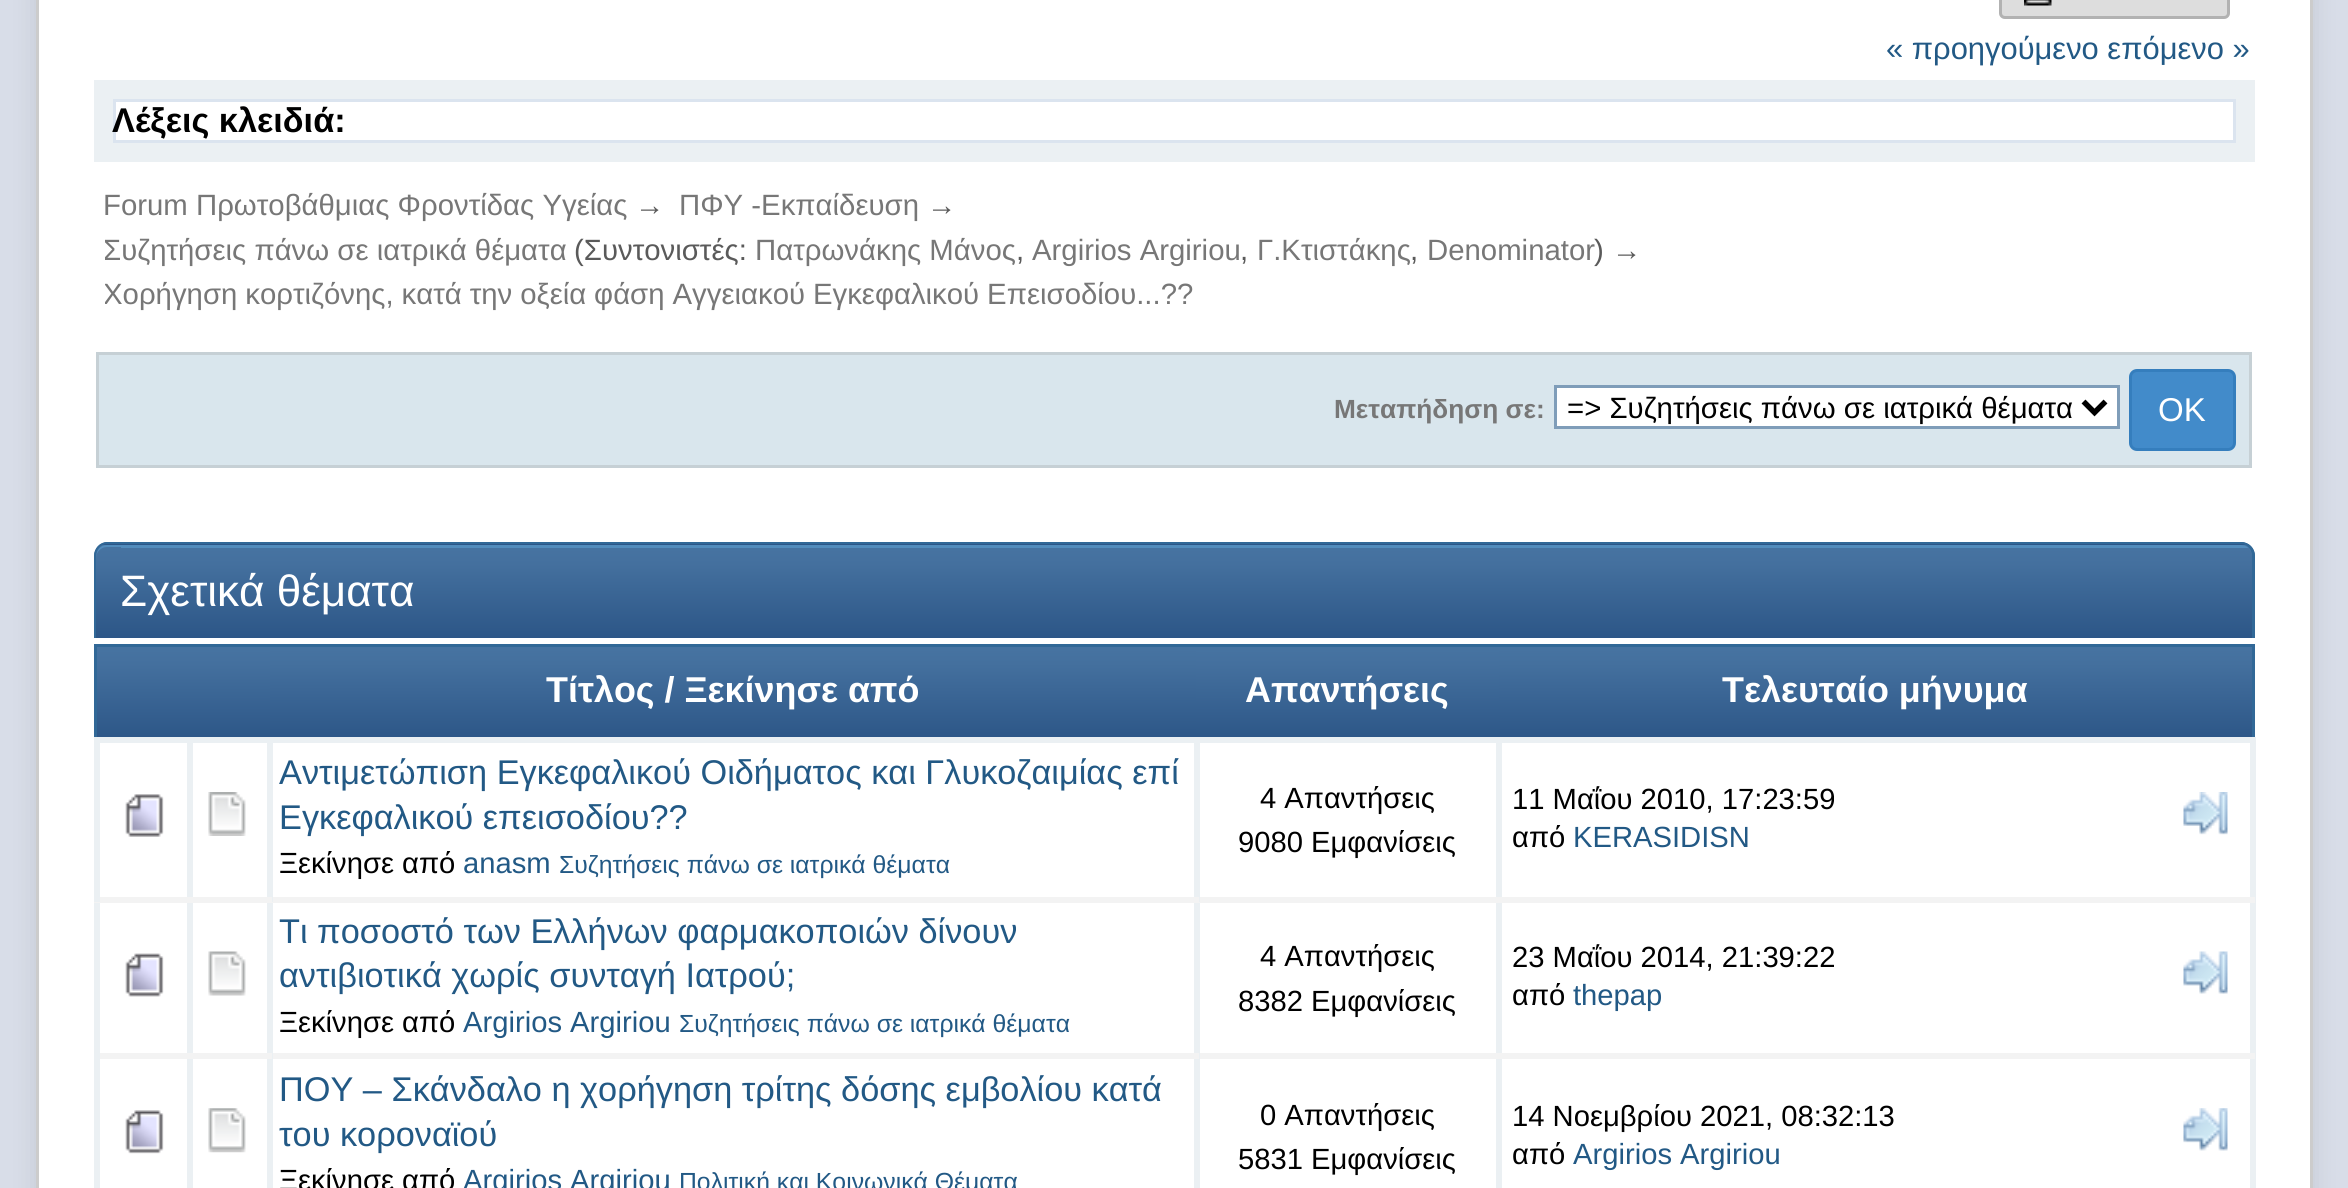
#include <cairo.h>
#include <math.h>
#include <stddef.h>

typedef struct { double x, y; const char *s; } line_t;
typedef struct { double x, y, w, h; unsigned color; } box_t;

static void ink(cairo_t *ctx, unsigned color) {
    cairo_set_source_rgb(ctx, (color >> 16) / 255.0, (color >> 8 & 255) / 255.0, (color & 255) / 255.0);
}

static void write_spaced(cairo_t *ctx, double x, double y, const char *s, double letter, double word) {
    cairo_move_to(ctx, x, y);
    while (*s) {
        char ch[5] = {0};
        int n = 0;
        do ch[n++] = *s++; while ((*s & 0xC0) == 0x80);
        cairo_show_text(ctx, ch);
        cairo_rel_move_to(ctx, letter + word * (*ch == ' '), 0);
    }
}

static void round_path(cairo_t *ctx, double x, double y, double w, double h, double r) {
    cairo_new_sub_path(ctx);
    cairo_arc(ctx, x + w - r, y + h - r, r, 0, M_PI / 2);
    cairo_arc(ctx, x + r, y + h - r, r, M_PI / 2, M_PI);
    cairo_arc(ctx, x + r, y + r, r, M_PI, 1.5 * M_PI);
    cairo_arc(ctx, x + w - r, y + r, r, 1.5 * M_PI, 2 * M_PI);
    cairo_close_path(ctx);
}

static void blur_box(cairo_t *ctx, double x, double y, double w, double h, double r, double blur, double alpha) {
    cairo_push_group_with_content(ctx, CAIRO_CONTENT_ALPHA);
    cairo_set_operator(ctx, CAIRO_OPERATOR_SOURCE);
    for (int i = 15; i >= -15 && fmin(w, h) + blur * i / 3 > 0; i -= 2) {
        double e = blur * i / 6;
        cairo_set_source_rgba(ctx, 0, 0, 0, alpha * erfc((i - 1) / 8.5) / 2);
        round_path(ctx, x - e, y - e, w + 2 * e, h + 2 * e, fmax(0, fmin(r + e + blur * .6, fmin(w, h) / 2 + e)));
        cairo_fill(ctx);
    }
    cairo_pattern_t *soft = cairo_pop_group(ctx);
    cairo_mask(ctx, soft);
    cairo_pattern_destroy(soft);
}

static void paste(cairo_t *ctx, const char *path, double x, double y, double w, double h) {
    cairo_surface_t *image = cairo_image_surface_create_from_png(path);
    cairo_save(ctx);
    cairo_set_source_surface(ctx, image, x, y);
    cairo_rectangle(ctx, x, y, w, h);
    cairo_fill(ctx);
    cairo_restore(ctx);
    cairo_surface_destroy(image);
}

int main(void) {
    cairo_surface_t *surface = cairo_image_surface_create(CAIRO_FORMAT_RGB24, 2348, 1188);
    cairo_t *ctx = cairo_create(surface);
    cairo_font_options_t *options = cairo_font_options_create();
    cairo_font_options_set_hint_metrics(options, CAIRO_HINT_METRICS_OFF);
    cairo_font_options_set_hint_style(options, CAIRO_HINT_STYLE_NONE);
    cairo_set_font_options(ctx, options);
    cairo_set_miter_limit(ctx, 4);
    cairo_pattern_t *gradient;
    ink(ctx, 0xD8DDE8);
    cairo_paint(ctx);
    ink(ctx, 0x000000);
    blur_box(ctx, 36, -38, 2277, 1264, 0, 12.5, 0.1);
    {
        static const box_t items[] = {
            {39, 0, 2271, 1188, 0xFFFFFF},
            {2310, 0, 3, 1188, 0xCCCCCC},
            {36, 0, 3, 1188, 0xCCCCCC},
        };
        for (size_t i = 0; i < sizeof items / sizeof *items; i++) {
            ink(ctx, items[i].color);
            cairo_rectangle(ctx, items[i].x, items[i].y, items[i].w, items[i].h);
            cairo_fill(ctx);
        }
    }
    ink(ctx, 0xDDDDDD);
    round_path(ctx, 1999, -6, 231, 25, 6);
    cairo_fill(ctx);
    round_path(ctx, 2000.5, -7.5, 228, 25, 4.5);
    cairo_set_source_rgba(ctx, 0.588, 0.588, 0.588, 0.6);
    cairo_set_line_width(ctx, 3);
    cairo_stroke(ctx);
    paste(ctx, "media/1.png", 2024, 0, 28, 6);
    cairo_select_font_face(ctx, "Liberation Sans", CAIRO_FONT_SLANT_NORMAL, CAIRO_FONT_WEIGHT_NORMAL);
    cairo_set_font_size(ctx, 30.9);
    ink(ctx, 0x225985);
    cairo_move_to(ctx, 1886, 59);
    cairo_show_text(ctx, "« προηγούμενο επόμενο »");
    cairo_rectangle(ctx, 114.5, 100.5, 2120, 41);
    ink(ctx, 0xDBE4EF);
    cairo_stroke(ctx);
    cairo_rectangle(ctx, 103.5, 89.5, 2142, 63);
    ink(ctx, 0xEBF0F3);
    cairo_set_line_width(ctx, 19);
    cairo_stroke(ctx);
    cairo_select_font_face(ctx, "Liberation Sans", CAIRO_FONT_SLANT_NORMAL, CAIRO_FONT_WEIGHT_BOLD);
    cairo_set_font_size(ctx, 34.3);
    ink(ctx, 0x000000);
    cairo_move_to(ctx, 112, 132);
    cairo_show_text(ctx, "Λέξεις κλειδιά:");
    cairo_select_font_face(ctx, "Liberation Sans", CAIRO_FONT_SLANT_NORMAL, CAIRO_FONT_WEIGHT_NORMAL);
    cairo_set_font_size(ctx, 29.35);
    ink(ctx, 0x777777);
    cairo_move_to(ctx, 103, 215);
    cairo_show_text(ctx, "Forum Πρωτοβάθμιας Φροντίδας Υγείας");
    ink(ctx, 0x5A5A5A);
    cairo_move_to(ctx, 635, 215);
    cairo_show_text(ctx, "→");
    ink(ctx, 0x777777);
    cairo_move_to(ctx, 679, 215);
    cairo_show_text(ctx, "ΠΦΥ -Εκπαίδευση");
    ink(ctx, 0x5A5A5A);
    cairo_move_to(ctx, 927, 215);
    cairo_show_text(ctx, "→");
    cairo_save(ctx);
    cairo_rectangle(ctx, 105, 173, 2139, 152);
    cairo_clip(ctx);
    ink(ctx, 0x777777);
    cairo_move_to(ctx, 103, 260);
    cairo_show_text(ctx, "Συζητήσεις πάνω σε ιατρικά θέματα");
    cairo_restore(ctx);
    cairo_move_to(ctx, 574, 260);
    cairo_show_text(ctx, "(Συντονιστές:");
    ink(ctx, 0x777777);
    cairo_move_to(ctx, 755, 260);
    cairo_show_text(ctx, "Πατρωνάκης Μάνος");
    ink(ctx, 0x5A5A5A);
    cairo_move_to(ctx, 1016, 260);
    cairo_show_text(ctx, ",");
    ink(ctx, 0x777777);
    cairo_move_to(ctx, 1032, 260);
    cairo_show_text(ctx, "Argirios Argiriou");
    ink(ctx, 0x5A5A5A);
    cairo_move_to(ctx, 1240, 260);
    cairo_show_text(ctx, ",");
    ink(ctx, 0x777777);
    cairo_move_to(ctx, 1257, 260);
    cairo_show_text(ctx, "Γ.Κτιστάκης");
    ink(ctx, 0x5A5A5A);
    cairo_move_to(ctx, 1410, 260);
    cairo_show_text(ctx, ",");
    ink(ctx, 0x777777);
    cairo_move_to(ctx, 1427, 260);
    cairo_show_text(ctx, "Denominator");
    ink(ctx, 0x5A5A5A);
    cairo_move_to(ctx, 1594, 260);
    cairo_show_text(ctx, ") →");
    cairo_save(ctx);
    cairo_rectangle(ctx, 105, 173, 2139, 152);
    cairo_clip(ctx);
    ink(ctx, 0x777777);
    write_spaced(ctx, 103, 304, "Χορήγηση κορτιζόνης, κατά την οξεία φάση Αγγειακού Εγκεφαλικού Επεισοδίου...?\077", 0, -0.25);
    cairo_restore(ctx);
    ink(ctx, 0xD9E6ED);
    cairo_rectangle(ctx, 97.5, 353.5, 2153, 113);
    cairo_fill_preserve(ctx);
    ink(ctx, 0xC6D0D5);
    cairo_set_line_width(ctx, 3);
    cairo_stroke(ctx);
    cairo_select_font_face(ctx, "Liberation Sans", CAIRO_FONT_SLANT_NORMAL, CAIRO_FONT_WEIGHT_BOLD);
    cairo_set_font_size(ctx, 26.25);
    ink(ctx, 0x777777);
    cairo_move_to(ctx, 1334, 418);
    cairo_show_text(ctx, "Μεταπήδηση σε:");
    ink(ctx, 0xFFFFFF);
    cairo_rectangle(ctx, 1555.5, 386.5, 563, 41);
    cairo_fill_preserve(ctx);
    ink(ctx, 0x7F9DB9);
    cairo_stroke(ctx);
    cairo_new_path(ctx);
    cairo_move_to(ctx, 2083.5, 401.5);
    cairo_line_to(ctx, 2094.5, 412.5);
    cairo_line_to(ctx, 2105.5, 401.5);
    ink(ctx, 0x000000);
    cairo_set_line_width(ctx, 5.5);
    cairo_stroke(ctx);
    cairo_select_font_face(ctx, "Liberation Sans", CAIRO_FONT_SLANT_NORMAL, CAIRO_FONT_WEIGHT_NORMAL);
    cairo_set_font_size(ctx, 29.35);
    cairo_move_to(ctx, 1567, 418);
    cairo_show_text(ctx, "=> Συζητήσεις πάνω σε ιατρικά θέματα");
    ink(ctx, 0x428BCA);
    round_path(ctx, 2130.5, 370.5, 104, 79, 6.5);
    cairo_fill_preserve(ctx);
    ink(ctx, 0x357EBD);
    cairo_set_line_width(ctx, 3);
    cairo_stroke(ctx);
    cairo_set_font_size(ctx, 33);
    ink(ctx, 0xFFFFFF);
    cairo_move_to(ctx, 2158, 421);
    cairo_show_text(ctx, "ΟΚ");
    cairo_save(ctx);
    cairo_new_path(ctx);
    cairo_move_to(ctx, 108, 542);
    cairo_line_to(ctx, 2241, 542);
    cairo_curve_to(ctx, 2248.5, 542, 2255, 548.5, 2255, 556);
    cairo_line_to(ctx, 2255, 638);
    cairo_line_to(ctx, 94, 638);
    cairo_line_to(ctx, 94, 556);
    cairo_curve_to(ctx, 94, 548.5, 100.5, 542, 108, 542);
    cairo_close_path(ctx);
    cairo_clip(ctx);
    gradient = cairo_pattern_create_linear(1174, 451, 1174, 545);
    cairo_pattern_add_color_stop_rgba(gradient, 0, 0.278, 0.455, 0.635, 1);
    cairo_pattern_add_color_stop_rgba(gradient, 0.21, 0.267, 0.439, 0.62, 1);
    cairo_pattern_add_color_stop_rgba(gradient, 1, 0.173, 0.337, 0.529, 1);
    cairo_set_source(ctx, gradient);
    cairo_pattern_destroy(gradient);
    cairo_rectangle(ctx, 94, 542, 2161, 3);
    cairo_fill(ctx);
    gradient = cairo_pattern_create_linear(1174, 544, 1174, 638);
    cairo_pattern_add_color_stop_rgba(gradient, 0, 0.278, 0.455, 0.635, 1);
    cairo_pattern_add_color_stop_rgba(gradient, 0.21, 0.267, 0.439, 0.62, 1);
    cairo_pattern_add_color_stop_rgba(gradient, 1, 0.173, 0.337, 0.529, 1);
    cairo_set_source(ctx, gradient);
    cairo_pattern_destroy(gradient);
    cairo_rectangle(ctx, 94, 545, 2161, 93);
    cairo_fill(ctx);
    cairo_restore(ctx);
    ink(ctx, 0x528CBC);
    cairo_new_path(ctx);
    cairo_move_to(ctx, 107, 547);
    cairo_line_to(ctx, 2241, 547);
    cairo_curve_to(ctx, 2247, 547, 2252, 552, 2252, 558);
    cairo_curve_to(ctx, 2252, 551, 2248, 545, 2241, 545);
    cairo_line_to(ctx, 107, 545);
    cairo_curve_to(ctx, 100, 545, 96, 551, 96, 558);
    cairo_curve_to(ctx, 96, 552, 101, 547, 107, 547);
    cairo_close_path(ctx);
    cairo_fill(ctx);
    ink(ctx, 0x316897);
    cairo_set_fill_rule(ctx, CAIRO_FILL_RULE_EVEN_ODD);
    cairo_new_path(ctx);
    cairo_move_to(ctx, 107, 542);
    cairo_line_to(ctx, 2241, 542);
    cairo_curve_to(ctx, 2249, 542, 2255, 548, 2255, 556);
    cairo_line_to(ctx, 2255, 638);
    cairo_line_to(ctx, 94, 638);
    cairo_line_to(ctx, 94, 556);
    cairo_curve_to(ctx, 94, 548, 100, 542, 107, 542);
    cairo_close_path(ctx);
    cairo_move_to(ctx, 107, 544);
    cairo_line_to(ctx, 2241, 544);
    cairo_curve_to(ctx, 2247, 544, 2252, 549, 2252, 556);
    cairo_line_to(ctx, 2252, 638);
    cairo_line_to(ctx, 96, 638);
    cairo_line_to(ctx, 96, 556);
    cairo_curve_to(ctx, 96, 549, 101, 544, 107, 544);
    cairo_close_path(ctx);
    cairo_fill(ctx);
    gradient = cairo_pattern_create_linear(1187, 544, 1187, 638);
    cairo_pattern_add_color_stop_rgba(gradient, 0, 0.278, 0.455, 0.635, 1);
    cairo_pattern_add_color_stop_rgba(gradient, 0.21, 0.267, 0.439, 0.62, 1);
    cairo_pattern_add_color_stop_rgba(gradient, 1, 0.173, 0.337, 0.529, 1);
    cairo_set_source(ctx, gradient);
    cairo_pattern_destroy(gradient);
    cairo_new_path(ctx);
    cairo_move_to(ctx, 121, 545);
    cairo_line_to(ctx, 2241, 545);
    cairo_curve_to(ctx, 2247, 545, 2252, 550, 2252, 556);
    cairo_line_to(ctx, 2252, 638);
    cairo_line_to(ctx, 121, 638);
    cairo_close_path(ctx);
    cairo_fill(ctx);
    cairo_save(ctx);
    cairo_set_fill_rule(ctx, CAIRO_FILL_RULE_WINDING);
    cairo_new_path(ctx);
    cairo_move_to(ctx, 107, 545);
    cairo_line_to(ctx, 2241, 545);
    cairo_curve_to(ctx, 2247, 545, 2252, 550, 2252, 556);
    cairo_line_to(ctx, 2252, 638);
    cairo_line_to(ctx, 96, 638);
    cairo_line_to(ctx, 96, 556);
    cairo_curve_to(ctx, 96, 550, 101, 545, 107, 545);
    cairo_close_path(ctx);
    cairo_clip(ctx);
    ink(ctx, 0x528CBC);
    cairo_rectangle(ctx, 121, 545, 2131, 3);
    cairo_fill(ctx);
    cairo_restore(ctx);
    cairo_set_font_size(ctx, 44);
    ink(ctx, 0xFFFFFF);
    cairo_move_to(ctx, 120, 606);
    cairo_show_text(ctx, "Σχετικά θέματα");
    {
        static const box_t items[] = {
            {94, 644, 2161, 3, 0x316897},
            {2252, 644, 3, 99, 0x316897},
            {94, 644, 3, 99, 0x316897},
        };
        for (size_t i = 0; i < sizeof items / sizeof *items; i++) {
            ink(ctx, items[i].color);
            cairo_rectangle(ctx, items[i].x, items[i].y, items[i].w, items[i].h);
            cairo_fill(ctx);
        }
    }
    gradient = cairo_pattern_create_linear(183, 644, 183, 740);
    cairo_pattern_add_color_stop_rgba(gradient, 0, 0.278, 0.455, 0.635, 1);
    cairo_pattern_add_color_stop_rgba(gradient, 0.21, 0.267, 0.439, 0.62, 1);
    cairo_pattern_add_color_stop_rgba(gradient, 1, 0.173, 0.337, 0.529, 1);
    cairo_set_source(ctx, gradient);
    cairo_pattern_destroy(gradient);
    cairo_rectangle(ctx, 97, 647, 173, 90);
    cairo_fill(ctx);
    gradient = cairo_pattern_create_linear(733, 643, 733, 740);
    cairo_pattern_add_color_stop_rgba(gradient, 0, 0.278, 0.455, 0.635, 1);
    cairo_pattern_add_color_stop_rgba(gradient, 0.21, 0.267, 0.439, 0.62, 1);
    cairo_pattern_add_color_stop_rgba(gradient, 1, 0.173, 0.337, 0.529, 1);
    cairo_set_source(ctx, gradient);
    cairo_pattern_destroy(gradient);
    cairo_rectangle(ctx, 270, 647, 926, 90);
    cairo_fill(ctx);
    cairo_select_font_face(ctx, "Liberation Sans", CAIRO_FONT_SLANT_NORMAL, CAIRO_FONT_WEIGHT_BOLD);
    cairo_set_font_size(ctx, 35.9);
    ink(ctx, 0xFFFFFF);
    cairo_move_to(ctx, 546, 702);
    cairo_show_text(ctx, "Τίτλος / Ξεκίνησε από");
    gradient = cairo_pattern_create_linear(1348, 644, 1348, 740);
    cairo_pattern_add_color_stop_rgba(gradient, 0, 0.278, 0.455, 0.635, 1);
    cairo_pattern_add_color_stop_rgba(gradient, 0.21, 0.267, 0.439, 0.62, 1);
    cairo_pattern_add_color_stop_rgba(gradient, 1, 0.173, 0.337, 0.529, 1);
    cairo_set_source(ctx, gradient);
    cairo_pattern_destroy(gradient);
    cairo_rectangle(ctx, 1196, 647, 303, 90);
    cairo_fill(ctx);
    ink(ctx, 0xFFFFFF);
    cairo_move_to(ctx, 1245, 702);
    cairo_show_text(ctx, "Απαντήσεις");
    gradient = cairo_pattern_create_linear(1876, 643, 1876, 740);
    cairo_pattern_add_color_stop_rgba(gradient, 0, 0.278, 0.455, 0.635, 1);
    cairo_pattern_add_color_stop_rgba(gradient, 0.21, 0.267, 0.439, 0.62, 1);
    cairo_pattern_add_color_stop_rgba(gradient, 1, 0.173, 0.337, 0.529, 1);
    cairo_set_source(ctx, gradient);
    cairo_pattern_destroy(gradient);
    cairo_rectangle(ctx, 1499, 647, 753, 90);
    cairo_fill(ctx);
    ink(ctx, 0xFFFFFF);
    cairo_move_to(ctx, 1722, 702);
    cairo_show_text(ctx, "Τελευταίο μήνυμα");
    {
        static const box_t items[] = {
            {1496, 737, 759, 6, 0xEBF0F3},
            {2250, 897, 6, 291, 0xEBF0F3},
            {2250, 737, 6, 165, 0xEBF0F3},
            {1496, 1053, 6, 135, 0xEBF0F3},
            {1496, 1053, 759, 6, 0xF3F3F3},
            {1496, 897, 6, 162, 0xEBF0F3},
            {1496, 897, 759, 6, 0xF3F3F3},
            {1496, 737, 6, 165, 0xEBF0F3},
            {1194, 737, 308, 6, 0xEBF0F3},
            {1194, 1053, 6, 135, 0xEBF0F3},
            {1194, 1053, 308, 6, 0xF3F3F3},
            {1194, 897, 6, 162, 0xEBF0F3},
            {1194, 897, 308, 6, 0xF3F3F3},
            {1194, 737, 6, 165, 0xEBF0F3},
            {267, 737, 932, 6, 0xEBF0F3},
            {267, 1053, 6, 135, 0xEBF0F3},
            {267, 1053, 932, 6, 0xF3F3F3},
            {267, 897, 6, 162, 0xEBF0F3},
            {267, 897, 932, 6, 0xF3F3F3},
            {267, 737, 6, 165, 0xEBF0F3},
            {187, 737, 85, 6, 0xEBF0F3},
            {187, 1053, 6, 135, 0xEBF0F3},
            {187, 1053, 85, 6, 0xF3F3F3},
            {187, 897, 6, 162, 0xEBF0F3},
            {187, 897, 85, 6, 0xF3F3F3},
            {187, 737, 6, 165, 0xEBF0F3},
            {94, 737, 99, 6, 0xEBF0F3},
            {94, 1053, 6, 135, 0xEBF0F3},
            {94, 1053, 99, 6, 0xF3F3F3},
            {94, 897, 6, 162, 0xEBF0F3},
            {94, 897, 99, 6, 0xF3F3F3},
            {94, 737, 6, 165, 0xEBF0F3},
        };
        for (size_t i = 0; i < sizeof items / sizeof *items; i++) {
            ink(ctx, items[i].color);
            cairo_rectangle(ctx, items[i].x, items[i].y, items[i].w, items[i].h);
            cairo_fill(ctx);
        }
    }
    paste(ctx, "media/2.png", 125, 794, 39, 43);
    paste(ctx, "media/3.png", 208, 792, 38, 44);
    cairo_select_font_face(ctx, "Liberation Sans", CAIRO_FONT_SLANT_NORMAL, CAIRO_FONT_WEIGHT_NORMAL);
    cairo_set_font_size(ctx, 34.3);
    ink(ctx, 0x225985);
    cairo_move_to(ctx, 279, 784);
    cairo_show_text(ctx, "Αντιμετώπιση Εγκεφαλικού Οιδήματος και Γλυκοζαιμίας επί");
    cairo_move_to(ctx, 279, 829);
    cairo_show_text(ctx, "Εγκεφαλικού επεισοδίου?\077");
    cairo_set_font_size(ctx, 29.2);
    ink(ctx, 0x000000);
    cairo_move_to(ctx, 279, 873);
    cairo_show_text(ctx, "Ξεκίνησε από");
    ink(ctx, 0x225985);
    cairo_move_to(ctx, 463, 873);
    cairo_show_text(ctx, "anasm");
    cairo_set_font_size(ctx, 24.75);
    cairo_move_to(ctx, 559, 873);
    cairo_show_text(ctx, "Συζητήσεις πάνω σε ιατρικά θέματα");
    cairo_set_font_size(ctx, 29.2);
    ink(ctx, 0x000000);
    {
        static const line_t items[] = {
            {1260, 808, "4 Απαντήσεις"},
            {1238, 852, "9080 Εμφανίσεις"},
            {1512, 809, "11 Μαΐου 2010, 17:23:59"},
        };
        for (size_t i = 0; i < sizeof items / sizeof *items; i++) {
            cairo_move_to(ctx, items[i].x, items[i].y);
            cairo_show_text(ctx, items[i].s);
        }
    }
    paste(ctx, "media/4.png", 2183, 792, 45, 43);
    cairo_move_to(ctx, 1512, 847);
    cairo_show_text(ctx, "από");
    ink(ctx, 0x225985);
    cairo_move_to(ctx, 1573, 847);
    cairo_show_text(ctx, "KERASIDISN");
    paste(ctx, "media/5.png", 125, 953, 39, 44);
    paste(ctx, "media/6.png", 208, 951, 38, 45);
    cairo_set_font_size(ctx, 34.3);
    cairo_move_to(ctx, 279, 943);
    cairo_show_text(ctx, "Τι ποσοστό των Ελλήνων φαρμακοποιών δίνουν");
    cairo_move_to(ctx, 279, 987);
    cairo_show_text(ctx, "αντιβιοτικά χωρίς συνταγή Ιατρού;");
    cairo_set_font_size(ctx, 29.2);
    ink(ctx, 0x000000);
    cairo_move_to(ctx, 279, 1032);
    cairo_show_text(ctx, "Ξεκίνησε από");
    ink(ctx, 0x225985);
    cairo_move_to(ctx, 463, 1032);
    cairo_show_text(ctx, "Argirios Argiriou");
    cairo_set_font_size(ctx, 24.75);
    cairo_move_to(ctx, 679, 1032);
    cairo_show_text(ctx, "Συζητήσεις πάνω σε ιατρικά θέματα");
    cairo_set_font_size(ctx, 29.2);
    ink(ctx, 0x000000);
    {
        static const line_t items[] = {
            {1260, 966, "4 Απαντήσεις"},
            {1238, 1011, "8382 Εμφανίσεις"},
            {1512, 967, "23 Μαΐου 2014, 21:39:22"},
        };
        for (size_t i = 0; i < sizeof items / sizeof *items; i++) {
            cairo_move_to(ctx, items[i].x, items[i].y);
            cairo_show_text(ctx, items[i].s);
        }
    }
    paste(ctx, "media/7.png", 2183, 951, 45, 43);
    cairo_move_to(ctx, 1512, 1005);
    cairo_show_text(ctx, "από");
    ink(ctx, 0x225985);
    cairo_move_to(ctx, 1573, 1005);
    cairo_show_text(ctx, "thepap");
    paste(ctx, "media/8.png", 125, 1110, 39, 44);
    paste(ctx, "media/9.png", 208, 1108, 38, 45);
    cairo_set_font_size(ctx, 34.3);
    cairo_move_to(ctx, 279, 1101);
    cairo_show_text(ctx, "ΠΟΥ – Σκάνδαλο η χορήγηση τρίτης δόσης εμβολίου κατά");
    cairo_move_to(ctx, 279, 1146);
    cairo_show_text(ctx, "του κοροναϊού");
    cairo_set_font_size(ctx, 29.2);
    ink(ctx, 0x000000);
    cairo_move_to(ctx, 279, 1190);
    cairo_show_text(ctx, "Ξεκίνησε από");
    ink(ctx, 0x225985);
    cairo_move_to(ctx, 463, 1190);
    cairo_show_text(ctx, "Argirios Argiriou");
    cairo_set_font_size(ctx, 24.75);
    cairo_move_to(ctx, 679, 1190);
    cairo_show_text(ctx, "Πολιτική και Κοινωνικά Θέματα");
    cairo_set_font_size(ctx, 29.2);
    ink(ctx, 0x000000);
    {
        static const line_t items[] = {
            {1260, 1125, "0 Απαντήσεις"},
            {1238, 1169, "5831 Εμφανίσεις"},
            {1512, 1126, "14 Νοεμβρίου 2021, 08:32:13"},
        };
        for (size_t i = 0; i < sizeof items / sizeof *items; i++) {
            cairo_move_to(ctx, items[i].x, items[i].y);
            cairo_show_text(ctx, items[i].s);
        }
    }
    paste(ctx, "media/10.png", 2183, 1108, 45, 43);
    cairo_move_to(ctx, 1512, 1164);
    cairo_show_text(ctx, "από");
    ink(ctx, 0x225985);
    cairo_move_to(ctx, 1573, 1164);
    cairo_show_text(ctx, "Argirios Argiriou");
    cairo_surface_write_to_png(surface, "image.png");
    cairo_font_options_destroy(options);
    cairo_destroy(ctx);
    cairo_surface_destroy(surface);
    return 0;
}
